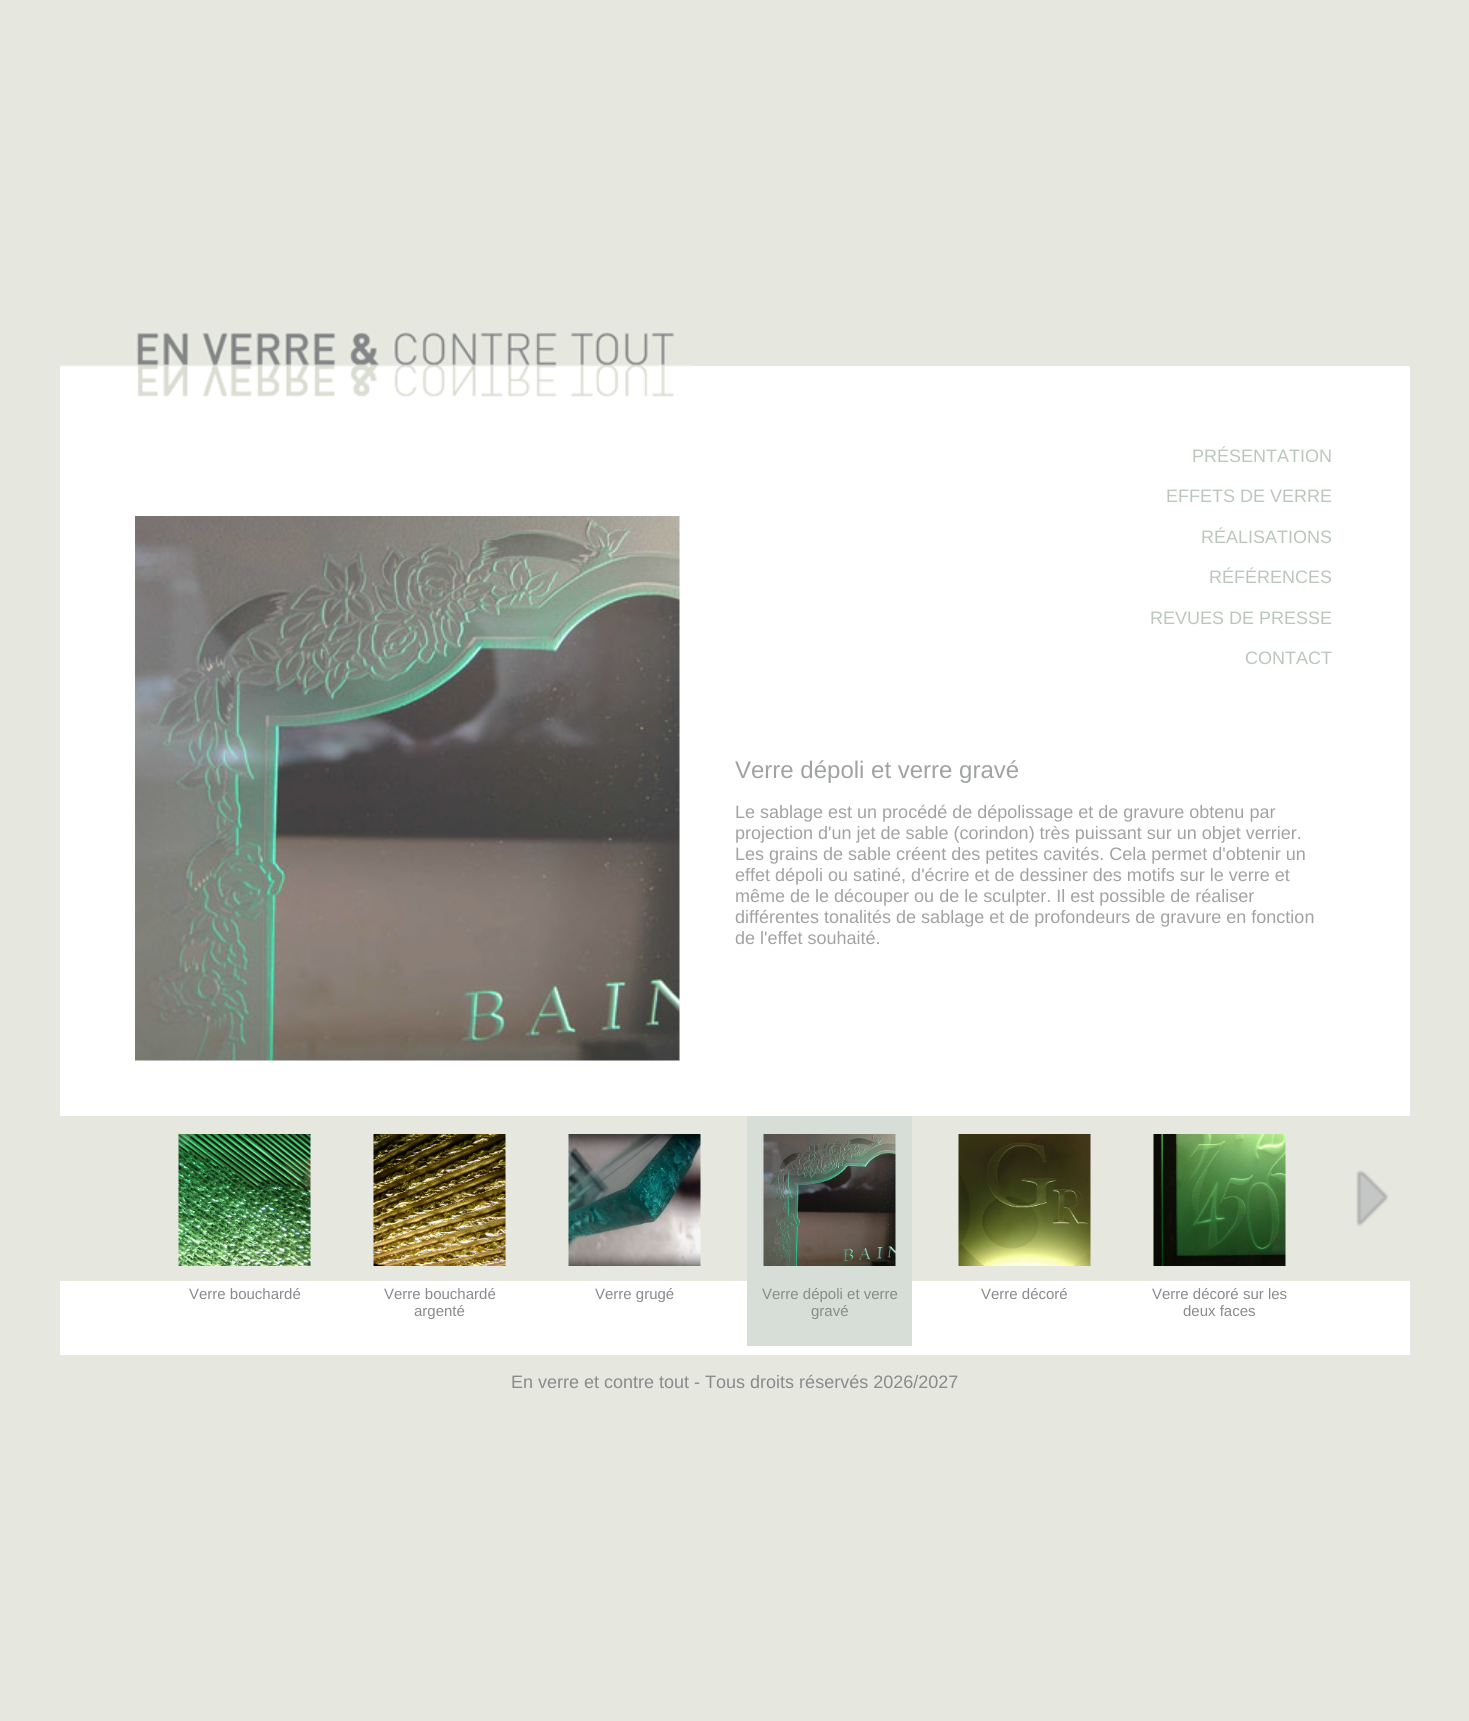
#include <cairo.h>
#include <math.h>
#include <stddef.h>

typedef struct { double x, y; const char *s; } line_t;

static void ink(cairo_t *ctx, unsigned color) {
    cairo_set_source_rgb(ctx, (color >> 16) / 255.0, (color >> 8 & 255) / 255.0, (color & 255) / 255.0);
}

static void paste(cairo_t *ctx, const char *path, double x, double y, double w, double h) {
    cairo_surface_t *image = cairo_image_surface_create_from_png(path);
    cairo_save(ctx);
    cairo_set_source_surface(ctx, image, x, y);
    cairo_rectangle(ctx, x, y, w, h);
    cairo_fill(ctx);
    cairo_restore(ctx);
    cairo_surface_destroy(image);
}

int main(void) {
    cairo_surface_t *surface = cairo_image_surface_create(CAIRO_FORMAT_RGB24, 1469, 1721);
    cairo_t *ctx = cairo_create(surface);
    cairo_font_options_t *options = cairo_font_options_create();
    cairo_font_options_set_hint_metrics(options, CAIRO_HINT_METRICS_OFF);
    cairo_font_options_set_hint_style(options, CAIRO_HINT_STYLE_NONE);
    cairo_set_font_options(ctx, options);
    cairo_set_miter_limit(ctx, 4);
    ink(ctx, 0xE6E8E0);
    cairo_paint(ctx);
    ink(ctx, 0xFFFFFF);
    cairo_rectangle(ctx, 60, 366, 1350, 989);
    cairo_fill(ctx);
    paste(ctx, "media/1.png", 60, 332, 631, 65);
    cairo_select_font_face(ctx, "Liberation Sans", CAIRO_FONT_SLANT_NORMAL, CAIRO_FONT_WEIGHT_NORMAL);
    cairo_set_font_size(ctx, 18);
    ink(ctx, 0xBAC7BC);
    {
        static const line_t items[] = {
            {1192, 462, "PRÉSENTATION"},
            {1166, 502, "EFFETS DE VERRE"},
            {1201, 543, "RÉALISATIONS"},
            {1209, 583, "RÉFÉRENCES"},
            {1150, 624, "REVUES DE PRESSE"},
            {1245, 664, "CONTACT"},
        };
        for (size_t i = 0; i < sizeof items / sizeof *items; i++) {
            cairo_move_to(ctx, items[i].x, items[i].y);
            cairo_show_text(ctx, items[i].s);
        }
    }
    paste(ctx, "media/2.png", 135, 516, 545, 545);
    cairo_set_font_size(ctx, 24);
    ink(ctx, 0xA0A2A3);
    cairo_move_to(ctx, 735, 778);
    cairo_show_text(ctx, "Verre dépoli et verre gravé");
    cairo_set_font_size(ctx, 18);
    {
        static const line_t items[] = {
            {735, 818, "Le sablage est un procédé de dépolissage et de gravure obtenu par"},
            {735, 839, "projection d'un jet de sable (corindon) très puissant sur un objet verrier."},
            {735, 860, "Les grains de sable créent des petites cavités. Cela permet d'obtenir un"},
            {735, 881, "effet dépoli ou satiné, d'écrire et de dessiner des motifs sur le verre et"},
            {735, 902, "même de le découper ou de le sculpter. Il est possible de réaliser"},
            {735, 923, "différentes tonalités de sablage et de profondeurs de gravure en fonction"},
            {735, 944, "de l'effet souhaité."},
        };
        for (size_t i = 0; i < sizeof items / sizeof *items; i++) {
            cairo_move_to(ctx, items[i].x, items[i].y);
            cairo_show_text(ctx, items[i].s);
        }
    }
    ink(ctx, 0xE6E8E0);
    cairo_rectangle(ctx, 60, 1116, 1350, 165);
    cairo_fill(ctx);
    paste(ctx, "media/3.png", 1356, 1170, 33, 57);
    paste(ctx, "media/4.png", 178, 1134, 133, 132);
    cairo_set_font_size(ctx, 15);
    ink(ctx, 0x888A8B);
    cairo_move_to(ctx, 189, 1299);
    cairo_show_text(ctx, "Verre bouchardé");
    paste(ctx, "media/5.png", 373, 1134, 133, 132);
    cairo_move_to(ctx, 384, 1299);
    cairo_show_text(ctx, "Verre bouchardé");
    cairo_move_to(ctx, 414, 1316);
    cairo_show_text(ctx, "argenté");
    paste(ctx, "media/6.png", 568, 1134, 133, 132);
    cairo_move_to(ctx, 595, 1299);
    cairo_show_text(ctx, "Verre grugé");
    ink(ctx, 0xD6DED7);
    cairo_rectangle(ctx, 747, 1116, 165, 230);
    cairo_fill(ctx);
    paste(ctx, "media/7.png", 763, 1134, 133, 132);
    ink(ctx, 0x888A8B);
    cairo_move_to(ctx, 762, 1299);
    cairo_show_text(ctx, "Verre dépoli et verre");
    cairo_move_to(ctx, 811, 1316);
    cairo_show_text(ctx, "gravé");
    paste(ctx, "media/8.png", 958, 1134, 133, 132);
    cairo_move_to(ctx, 981, 1299);
    cairo_show_text(ctx, "Verre décoré");
    paste(ctx, "media/9.png", 1153, 1134, 133, 132);
    cairo_move_to(ctx, 1152, 1299);
    cairo_show_text(ctx, "Verre décoré sur les");
    cairo_move_to(ctx, 1183, 1316);
    cairo_show_text(ctx, "deux faces");
    cairo_set_font_size(ctx, 18);
    cairo_move_to(ctx, 511, 1388);
    cairo_show_text(ctx, "En verre et contre tout - Tous droits réservés 2026/2027");
    cairo_surface_write_to_png(surface, "image.png");
    cairo_font_options_destroy(options);
    cairo_destroy(ctx);
    cairo_surface_destroy(surface);
    return 0;
}
